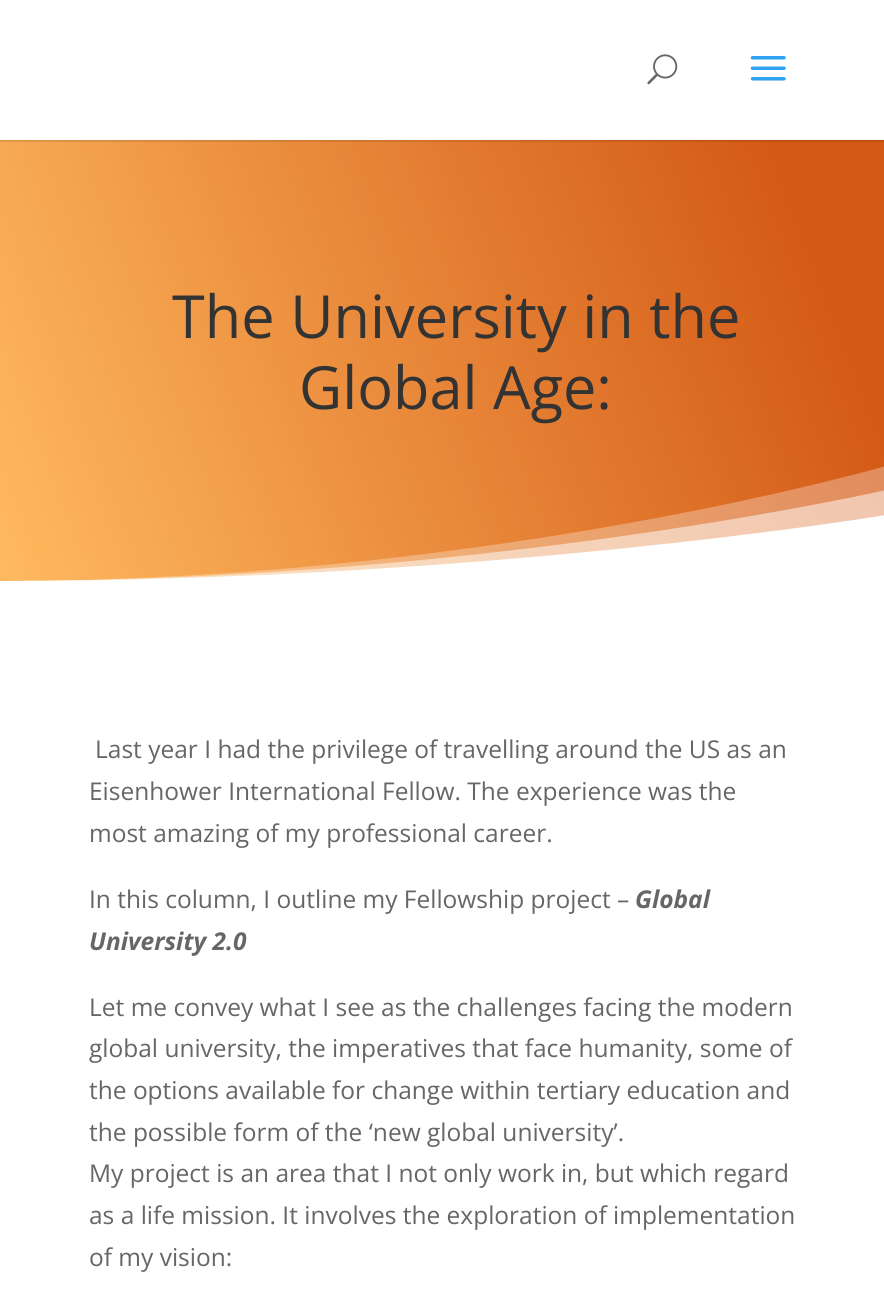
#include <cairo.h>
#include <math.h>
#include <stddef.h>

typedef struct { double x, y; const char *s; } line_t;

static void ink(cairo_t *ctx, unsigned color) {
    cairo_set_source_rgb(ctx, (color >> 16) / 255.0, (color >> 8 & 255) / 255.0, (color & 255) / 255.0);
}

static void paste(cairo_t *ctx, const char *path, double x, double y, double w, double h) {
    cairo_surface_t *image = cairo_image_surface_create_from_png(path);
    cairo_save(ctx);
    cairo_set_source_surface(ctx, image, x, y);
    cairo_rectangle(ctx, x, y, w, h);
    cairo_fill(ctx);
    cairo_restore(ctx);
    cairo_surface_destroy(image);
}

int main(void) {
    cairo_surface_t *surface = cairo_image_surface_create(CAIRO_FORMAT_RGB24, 884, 1306);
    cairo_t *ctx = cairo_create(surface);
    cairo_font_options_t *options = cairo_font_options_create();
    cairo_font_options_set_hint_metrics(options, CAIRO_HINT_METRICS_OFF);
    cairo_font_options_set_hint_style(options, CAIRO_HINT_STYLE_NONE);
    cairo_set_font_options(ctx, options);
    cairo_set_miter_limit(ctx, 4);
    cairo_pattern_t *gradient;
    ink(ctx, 0xFFFFFF);
    cairo_paint(ctx);
    gradient = cairo_pattern_create_linear(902, 184, -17, 537);
    cairo_pattern_add_color_stop_rgba(gradient, 0.1, 0.827, 0.349, 0.086, 1);
    cairo_pattern_add_color_stop_rgba(gradient, 1, 1, 0.729, 0.376, 1);
    cairo_set_source(ctx, gradient);
    cairo_pattern_destroy(gradient);
    cairo_rectangle(ctx, 0, 140, 884, 441);
    cairo_fill(ctx);
    cairo_set_source_rgba(ctx, 0, 0, 0, 0.1);
    cairo_new_path(ctx);
    cairo_move_to(ctx, 0, 140);
    cairo_line_to(ctx, 0, 142);
    cairo_line_to(ctx, 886, 142);
    cairo_line_to(ctx, 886, 2);
    cairo_line_to(ctx, 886, 140);
    cairo_close_path(ctx);
    cairo_fill(ctx);
    paste(ctx, "media/1.png", 647, 54, 31, 31);
    paste(ctx, "media/2.png", 750, 56, 36, 25);
    cairo_select_font_face(ctx, "Open Sans", CAIRO_FONT_SLANT_NORMAL, CAIRO_FONT_WEIGHT_NORMAL);
    cairo_set_font_size(ctx, 59.5);
    ink(ctx, 0x333333);
    cairo_move_to(ctx, 172, 338);
    cairo_show_text(ctx, "The University in the");
    cairo_move_to(ctx, 299, 409);
    cairo_show_text(ctx, "Global Age:");
    cairo_set_source_rgba(ctx, 1, 1, 1, 0.3);
    cairo_new_path(ctx);
    cairo_move_to(ctx, 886, 581);
    cairo_line_to(ctx, 0, 581);
    cairo_curve_to(ctx, 489, 581, 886, 466, 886, 466);
    cairo_close_path(ctx);
    cairo_fill(ctx);
    cairo_set_source_rgba(ctx, 1, 1, 1, 0.5);
    cairo_new_path(ctx);
    cairo_move_to(ctx, 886, 581);
    cairo_line_to(ctx, 0, 581);
    cairo_curve_to(ctx, 489, 581, 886, 490, 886, 490);
    cairo_close_path(ctx);
    cairo_fill(ctx);
    ink(ctx, 0xFFFFFF);
    cairo_new_path(ctx);
    cairo_move_to(ctx, 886, 581);
    cairo_line_to(ctx, 0, 581);
    cairo_curve_to(ctx, 489, 581, 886, 515, 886, 515);
    cairo_close_path(ctx);
    cairo_fill(ctx);
    cairo_set_font_size(ctx, 24.5);
    ink(ctx, 0x666666);
    {
        static const line_t items[] = {
            {95, 758, "Last year I had the privilege of travelling around the US as an"},
            {89, 800, "Eisenhower International Fellow. The experience was the"},
            {89, 842, "most amazing of my professional career."},
            {89, 908, "In this column, I outline my Fellowship project –"},
        };
        for (size_t i = 0; i < sizeof items / sizeof *items; i++) {
            cairo_move_to(ctx, items[i].x, items[i].y);
            cairo_show_text(ctx, items[i].s);
        }
    }
    cairo_select_font_face(ctx, "Open Sans", CAIRO_FONT_SLANT_ITALIC, CAIRO_FONT_WEIGHT_BOLD);
    cairo_move_to(ctx, 635, 908);
    cairo_show_text(ctx, "Global");
    cairo_move_to(ctx, 89, 950);
    cairo_show_text(ctx, "University 2.0");
    cairo_select_font_face(ctx, "Open Sans", CAIRO_FONT_SLANT_NORMAL, CAIRO_FONT_WEIGHT_NORMAL);
    {
        static const line_t items[] = {
            {89, 1016, "Let me convey what I see as the challenges facing the modern"},
            {89, 1057, "global university, the imperatives that face humanity, some of"},
            {89, 1099, "the options available for change within tertiary education and"},
            {89, 1141, "the possible form of the ‘new global university’."},
            {89, 1182, "My project is an area that I not only work in, but which regard"},
            {89, 1224, "as a life mission. It involves the exploration of implementation"},
            {89, 1266, "of my vision:"},
        };
        for (size_t i = 0; i < sizeof items / sizeof *items; i++) {
            cairo_move_to(ctx, items[i].x, items[i].y);
            cairo_show_text(ctx, items[i].s);
        }
    }
    cairo_surface_write_to_png(surface, "image.png");
    cairo_font_options_destroy(options);
    cairo_destroy(ctx);
    cairo_surface_destroy(surface);
    return 0;
}
